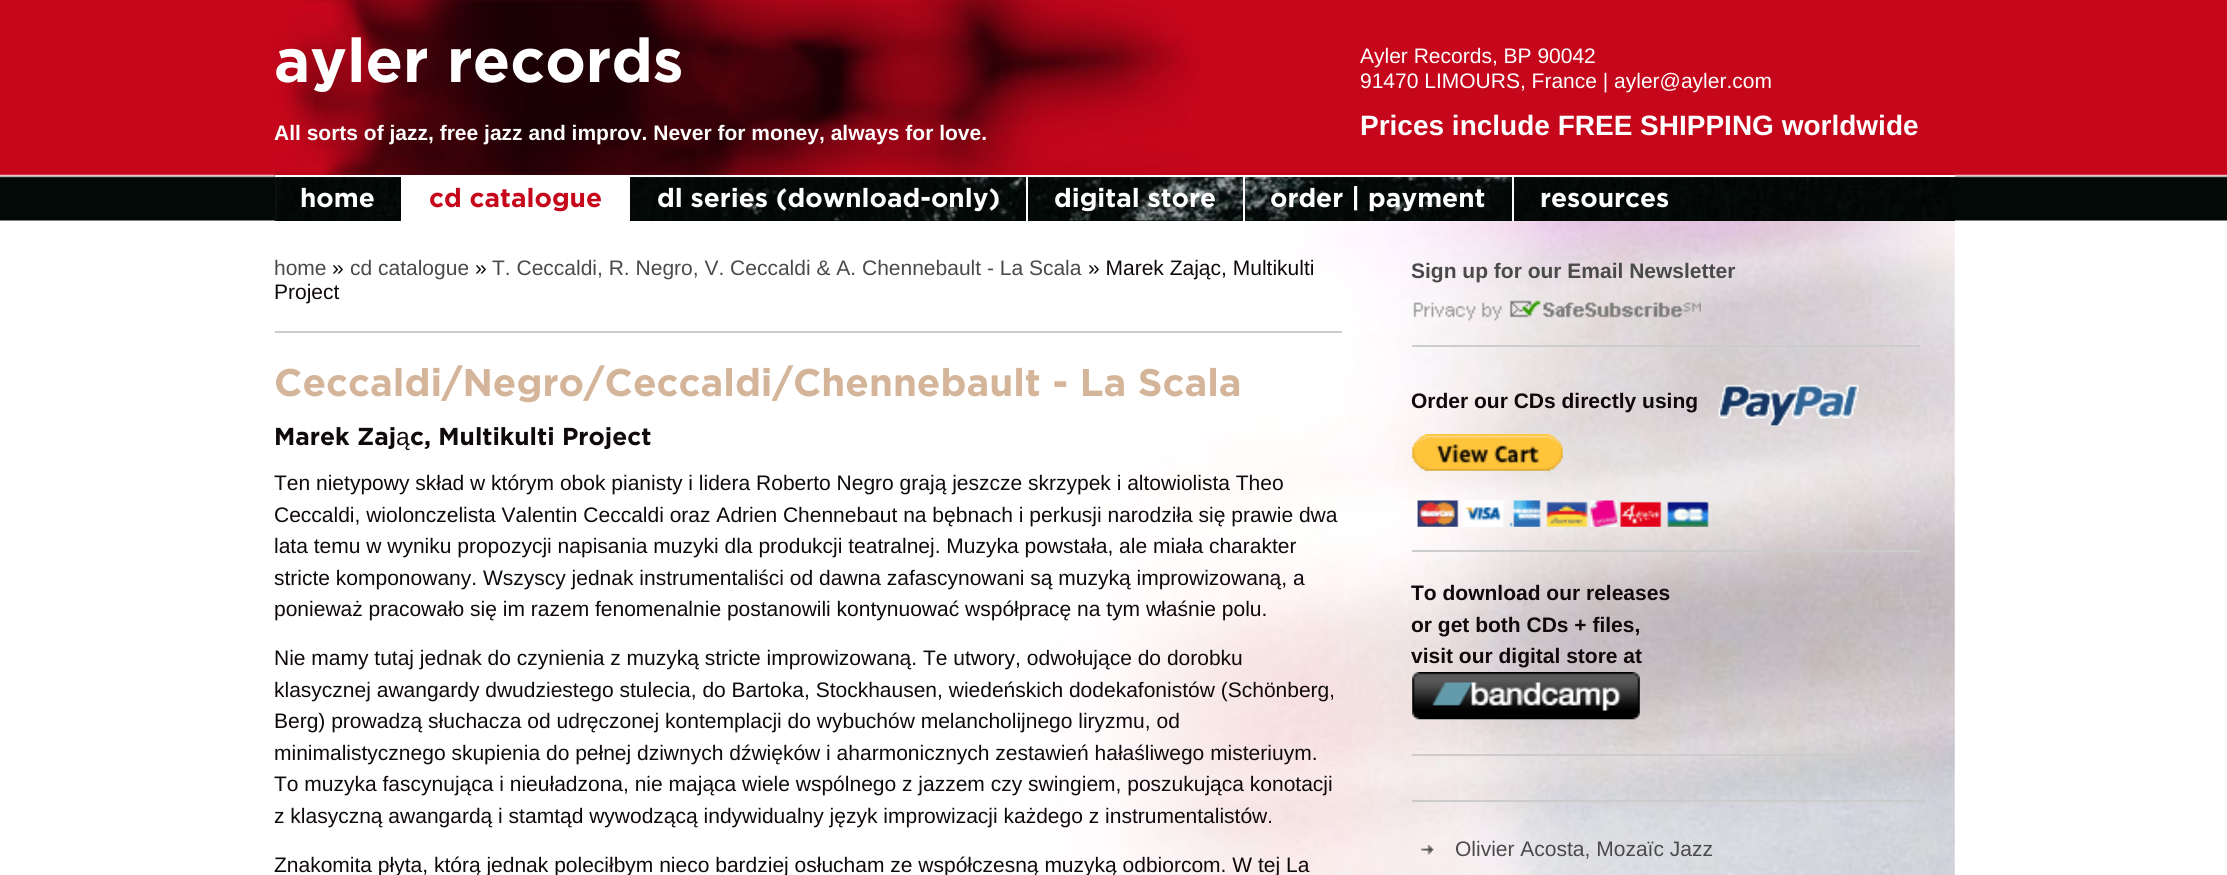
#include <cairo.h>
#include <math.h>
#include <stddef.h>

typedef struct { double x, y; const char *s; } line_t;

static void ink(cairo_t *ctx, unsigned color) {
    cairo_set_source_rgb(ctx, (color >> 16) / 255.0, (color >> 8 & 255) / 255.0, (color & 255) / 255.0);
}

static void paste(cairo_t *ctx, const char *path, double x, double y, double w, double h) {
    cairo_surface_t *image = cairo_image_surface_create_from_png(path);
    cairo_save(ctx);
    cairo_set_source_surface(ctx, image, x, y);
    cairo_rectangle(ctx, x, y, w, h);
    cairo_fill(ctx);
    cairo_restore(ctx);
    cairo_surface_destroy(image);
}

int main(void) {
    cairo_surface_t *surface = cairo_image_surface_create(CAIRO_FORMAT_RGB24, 2227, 875);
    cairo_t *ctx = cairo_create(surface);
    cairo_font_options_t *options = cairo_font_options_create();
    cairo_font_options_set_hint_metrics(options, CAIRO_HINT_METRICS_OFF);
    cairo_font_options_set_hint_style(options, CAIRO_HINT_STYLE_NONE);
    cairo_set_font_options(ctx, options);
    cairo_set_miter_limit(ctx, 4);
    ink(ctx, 0xFFFFFF);
    cairo_paint(ctx);
    paste(ctx, "media/1.png", 0, 0, 2227, 221);
    ink(ctx, 0xC6061B);
    cairo_rectangle(ctx, 1200, 174, 755, 1);
    cairo_fill(ctx);
    paste(ctx, "media/2.png", 274, 0, 926, 175);
    cairo_select_font_face(ctx, "Gotham", CAIRO_FONT_SLANT_NORMAL, CAIRO_FONT_WEIGHT_BOLD);
    cairo_set_font_size(ctx, 61.25);
    ink(ctx, 0xFFFFFF);
    cairo_move_to(ctx, 274, 82);
    cairo_show_text(ctx, "ayler records");
    cairo_select_font_face(ctx, "Liberation Sans", CAIRO_FONT_SLANT_NORMAL, CAIRO_FONT_WEIGHT_NORMAL);
    cairo_set_font_size(ctx, 21);
    cairo_move_to(ctx, 1360, 63);
    cairo_show_text(ctx, "Ayler Records, BP 90042");
    cairo_move_to(ctx, 1360, 88);
    cairo_show_text(ctx, "91470 LIMOURS, France | ayler@ayler.com");
    cairo_select_font_face(ctx, "Liberation Sans", CAIRO_FONT_SLANT_NORMAL, CAIRO_FONT_WEIGHT_BOLD);
    cairo_set_font_size(ctx, 28);
    cairo_move_to(ctx, 1360, 135);
    cairo_show_text(ctx, "Prices include FREE SHIPPING worldwide");
    cairo_set_font_size(ctx, 21);
    cairo_move_to(ctx, 274, 140);
    cairo_show_text(ctx, "All sorts of jazz, free jazz and improv. Never for money, always for love.");
    ink(ctx, 0x030907);
    cairo_rectangle(ctx, 275, 177, 1680, 44);
    cairo_fill(ctx);
    paste(ctx, "media/3.png", 274, 175, 1681, 46);
    ink(ctx, 0xFFFFFF);
    cairo_rectangle(ctx, 275, 175, 1680, 2);
    cairo_fill(ctx);
    cairo_select_font_face(ctx, "Gotham", CAIRO_FONT_SLANT_NORMAL, CAIRO_FONT_WEIGHT_BOLD);
    cairo_set_font_size(ctx, 26.25);
    cairo_move_to(ctx, 300, 207);
    cairo_show_text(ctx, "home");
    cairo_rectangle(ctx, 401, 177, 229, 44);
    cairo_fill(ctx);
    ink(ctx, 0xC6061B);
    cairo_move_to(ctx, 429, 207);
    cairo_show_text(ctx, "cd catalogue");
    ink(ctx, 0xFFFFFF);
    cairo_move_to(ctx, 657, 207);
    cairo_show_text(ctx, "dl series (download-only)");
    cairo_rectangle(ctx, 1026, 177, 2, 44);
    cairo_fill(ctx);
    cairo_move_to(ctx, 1054, 207);
    cairo_show_text(ctx, "digital store");
    cairo_rectangle(ctx, 1243, 177, 2, 44);
    cairo_fill(ctx);
    cairo_move_to(ctx, 1270, 207);
    cairo_show_text(ctx, "order | payment");
    cairo_rectangle(ctx, 1512, 177, 2, 44);
    cairo_fill(ctx);
    cairo_move_to(ctx, 1540, 207);
    cairo_show_text(ctx, "resources");
    paste(ctx, "media/4.png", 904, 221, 1051, 654);
    ink(ctx, 0xCCCCCC);
    cairo_rectangle(ctx, 275, 331, 1067, 2);
    cairo_fill(ctx);
    cairo_select_font_face(ctx, "Liberation Sans", CAIRO_FONT_SLANT_NORMAL, CAIRO_FONT_WEIGHT_NORMAL);
    cairo_set_font_size(ctx, 21);
    ink(ctx, 0x4A4A4A);
    cairo_move_to(ctx, 274, 275);
    cairo_show_text(ctx, "home");
    ink(ctx, 0x0F090B);
    cairo_move_to(ctx, 332, 275);
    cairo_show_text(ctx, "»");
    ink(ctx, 0x4A4A4A);
    cairo_move_to(ctx, 350, 275);
    cairo_show_text(ctx, "cd catalogue");
    ink(ctx, 0x0F090B);
    cairo_move_to(ctx, 475, 275);
    cairo_show_text(ctx, "»");
    ink(ctx, 0x4A4A4A);
    cairo_move_to(ctx, 492, 275);
    cairo_show_text(ctx, "T. Ceccaldi, R. Negro, V. Ceccaldi & A. Chennebault - La Scala");
    ink(ctx, 0x0F090B);
    cairo_move_to(ctx, 1088, 275);
    cairo_show_text(ctx, "» Marek Zając, Multikulti");
    cairo_move_to(ctx, 274, 299);
    cairo_show_text(ctx, "Project");
    cairo_select_font_face(ctx, "Gotham", CAIRO_FONT_SLANT_NORMAL, CAIRO_FONT_WEIGHT_BOLD);
    cairo_set_font_size(ctx, 38.5);
    ink(ctx, 0xD4B59A);
    cairo_move_to(ctx, 274, 396);
    cairo_show_text(ctx, "Ceccaldi/Negro/Ceccaldi/Chennebault - La Scala");
    cairo_set_font_size(ctx, 24.5);
    ink(ctx, 0x0F090B);
    cairo_move_to(ctx, 274, 445);
    cairo_show_text(ctx, "Marek Zaj");
    cairo_select_font_face(ctx, "Liberation Sans", CAIRO_FONT_SLANT_NORMAL, CAIRO_FONT_WEIGHT_NORMAL);
    cairo_move_to(ctx, 396, 445);
    cairo_show_text(ctx, "ą");
    cairo_select_font_face(ctx, "Gotham", CAIRO_FONT_SLANT_NORMAL, CAIRO_FONT_WEIGHT_BOLD);
    cairo_move_to(ctx, 410, 445);
    cairo_show_text(ctx, "c, Multikulti Project");
    cairo_select_font_face(ctx, "Liberation Sans", CAIRO_FONT_SLANT_NORMAL, CAIRO_FONT_WEIGHT_NORMAL);
    cairo_set_font_size(ctx, 21);
    {
        static const line_t items[] = {
            {274, 490, "Ten nietypowy skład w którym obok pianisty i lidera Roberto Negro grają jeszcze skrzypek i altowiolista Theo"},
            {274, 522, "Ceccaldi, wiolonczelista Valentin Ceccaldi oraz Adrien Chennebaut na bębnach i perkusji narodziła się prawie dwa"},
            {274, 553, "lata temu w wyniku propozycji napisania muzyki dla produkcji teatralnej. Muzyka powstała, ale miała charakter"},
            {274, 585, "stricte komponowany. Wszyscy jednak instrumentaliści od dawna zafascynowani są muzyką improwizowaną, a"},
            {274, 616, "ponieważ pracowało się im razem fenomenalnie postanowili kontynuować współpracę na tym właśnie polu."},
            {274, 665, "Nie mamy tutaj jednak do czynienia z muzyką stricte improwizowaną. Te utwory, odwołujące do dorobku"},
            {274, 697, "klasycznej awangardy dwudziestego stulecia, do Bartoka, Stockhausen, wiedeńskich dodekafonistów (Schönberg,"},
            {274, 728, "Berg) prowadzą słuchacza od udręczonej kontemplacji do wybuchów melancholijnego liryzmu, od"},
            {274, 760, "minimalistycznego skupienia do pełnej dziwnych dźwięków i aharmonicznych zestawień hałaśliwego misteriuym."},
            {274, 791, "To muzyka fascynująca i nieuładzona, nie mająca wiele wspólnego z jazzem czy swingiem, poszukująca konotacji"},
            {274, 823, "z klasyczną awangardą i stamtąd wywodzącą indywidualny język improwizacji każdego z instrumentalistów."},
            {274, 872, "Znakomita płyta, którą jednak poleciłbym nieco bardziej osłucham ze współczesną muzyką odbiorcom. W tej La"},
        };
        for (size_t i = 0; i < sizeof items / sizeof *items; i++) {
            cairo_move_to(ctx, items[i].x, items[i].y);
            cairo_show_text(ctx, items[i].s);
        }
    }
    ink(ctx, 0xCCCCCC);
    cairo_rectangle(ctx, 1412, 345, 508, 2);
    cairo_fill(ctx);
    cairo_select_font_face(ctx, "Liberation Sans", CAIRO_FONT_SLANT_NORMAL, CAIRO_FONT_WEIGHT_BOLD);
    ink(ctx, 0x4A4A4A);
    cairo_move_to(ctx, 1411, 278);
    cairo_show_text(ctx, "Sign up for our Email Newsletter");
    paste(ctx, "media/5.png", 1413, 300, 288, 21);
    ink(ctx, 0xCCCCCC);
    cairo_rectangle(ctx, 1412, 550, 508, 2);
    cairo_fill(ctx);
    paste(ctx, "media/6.png", 1718, 384, 141, 42);
    ink(ctx, 0x0F090B);
    cairo_move_to(ctx, 1411, 408);
    cairo_show_text(ctx, "Order our CDs directly using");
    paste(ctx, "media/7.png", 1412, 434, 151, 37);
    paste(ctx, "media/8.png", 1417, 500, 292, 27);
    ink(ctx, 0xCCCCCC);
    cairo_rectangle(ctx, 1412, 754, 508, 2);
    cairo_fill(ctx);
    ink(ctx, 0x0F090B);
    {
        static const line_t items[] = {
            {1411, 600, "To download our releases"},
            {1411, 632, "or get both CDs + files,"},
            {1411, 663, "visit our digital store at"},
        };
        for (size_t i = 0; i < sizeof items / sizeof *items; i++) {
            cairo_move_to(ctx, items[i].x, items[i].y);
            cairo_show_text(ctx, items[i].s);
        }
    }
    paste(ctx, "media/9.png", 1412, 672, 228, 48);
    ink(ctx, 0xCCCCCC);
    cairo_rectangle(ctx, 1412, 800, 508, 2);
    cairo_fill(ctx);
    paste(ctx, "media/10.png", 1421, 845, 13, 10);
    cairo_select_font_face(ctx, "Liberation Sans", CAIRO_FONT_SLANT_NORMAL, CAIRO_FONT_WEIGHT_NORMAL);
    ink(ctx, 0x4A4A4A);
    cairo_move_to(ctx, 1455, 856);
    cairo_show_text(ctx, "Olivier Acosta, Mozaïc Jazz");
    cairo_surface_write_to_png(surface, "image.png");
    cairo_font_options_destroy(options);
    cairo_destroy(ctx);
    cairo_surface_destroy(surface);
    return 0;
}
